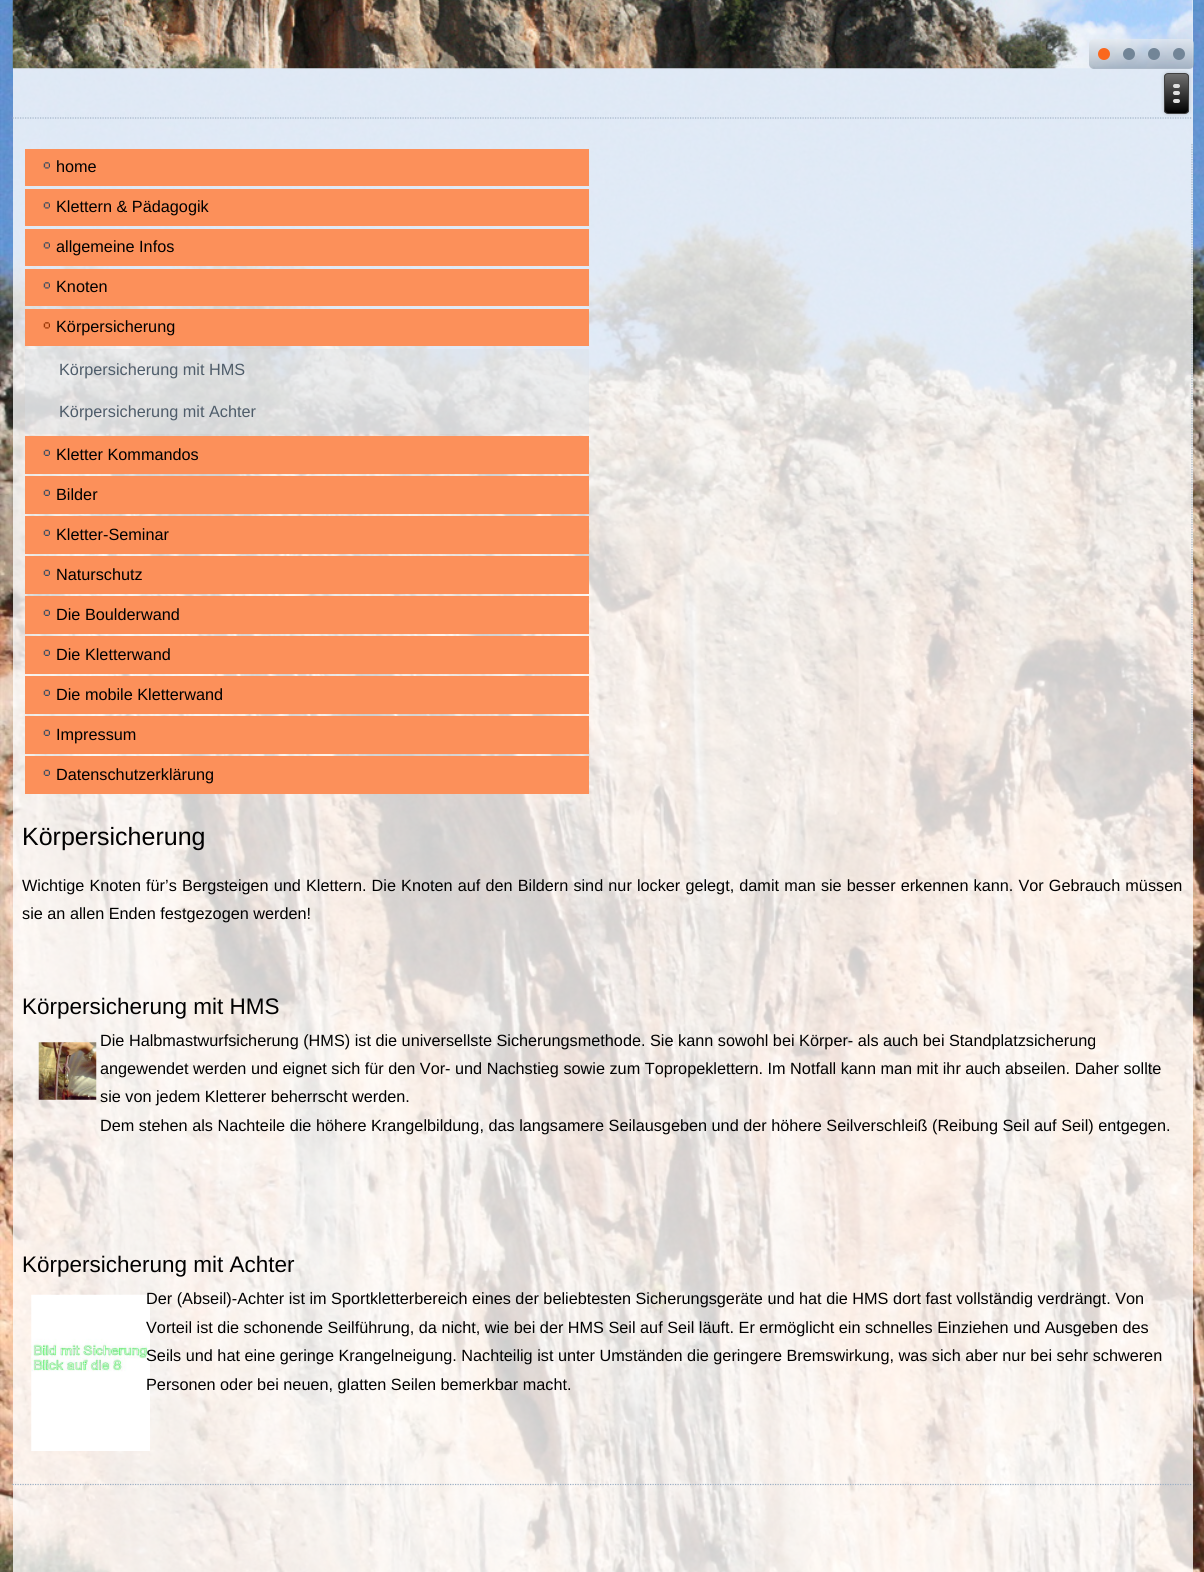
#include <cairo.h>
#include <math.h>
#include <stddef.h>

typedef struct { double x, y; const char *s; } line_t;

static void ink(cairo_t *ctx, unsigned color) {
    cairo_set_source_rgb(ctx, (color >> 16) / 255.0, (color >> 8 & 255) / 255.0, (color & 255) / 255.0);
}

static void write_spaced(cairo_t *ctx, double x, double y, const char *s, double letter, double word) {
    cairo_move_to(ctx, x, y);
    while (*s) {
        char ch[5] = {0};
        int n = 0;
        do ch[n++] = *s++; while ((*s & 0xC0) == 0x80);
        cairo_show_text(ctx, ch);
        cairo_rel_move_to(ctx, letter + word * (*ch == ' '), 0);
    }
}

static void round_path(cairo_t *ctx, double x, double y, double w, double h, double r) {
    cairo_new_sub_path(ctx);
    cairo_arc(ctx, x + w - r, y + h - r, r, 0, M_PI / 2);
    cairo_arc(ctx, x + r, y + h - r, r, M_PI / 2, M_PI);
    cairo_arc(ctx, x + r, y + r, r, M_PI, 1.5 * M_PI);
    cairo_arc(ctx, x + w - r, y + r, r, 1.5 * M_PI, 2 * M_PI);
    cairo_close_path(ctx);
}

static void blur_box(cairo_t *ctx, double x, double y, double w, double h, double r, double blur, double alpha) {
    cairo_push_group_with_content(ctx, CAIRO_CONTENT_ALPHA);
    cairo_set_operator(ctx, CAIRO_OPERATOR_SOURCE);
    for (int i = 15; i >= -15 && fmin(w, h) + blur * i / 3 > 0; i -= 2) {
        double e = blur * i / 6;
        cairo_set_source_rgba(ctx, 0, 0, 0, alpha * erfc((i - 1) / 8.5) / 2);
        round_path(ctx, x - e, y - e, w + 2 * e, h + 2 * e, fmax(0, fmin(r + e + blur * .6, fmin(w, h) / 2 + e)));
        cairo_fill(ctx);
    }
    cairo_pattern_t *soft = cairo_pop_group(ctx);
    cairo_mask(ctx, soft);
    cairo_pattern_destroy(soft);
}

static void paste(cairo_t *ctx, const char *path, double x, double y, double w, double h) {
    cairo_surface_t *image = cairo_image_surface_create_from_png(path);
    cairo_save(ctx);
    cairo_set_source_surface(ctx, image, x, y);
    cairo_rectangle(ctx, x, y, w, h);
    cairo_fill(ctx);
    cairo_restore(ctx);
    cairo_surface_destroy(image);
}

int main(void) {
    cairo_surface_t *surface = cairo_image_surface_create(CAIRO_FORMAT_RGB24, 1204, 1572);
    cairo_t *ctx = cairo_create(surface);
    cairo_font_options_t *options = cairo_font_options_create();
    cairo_font_options_set_hint_metrics(options, CAIRO_HINT_METRICS_OFF);
    cairo_font_options_set_hint_style(options, CAIRO_HINT_STYLE_NONE);
    cairo_set_font_options(ctx, options);
    cairo_set_miter_limit(ctx, 4);
    cairo_pattern_t *gradient;
    ink(ctx, 0xFFFFFF);
    cairo_paint(ctx);
    paste(ctx, "media/1.png", 0, 0, 1204, 1572);
    paste(ctx, "media/2.png", 12, 0, 1181, 69);
    cairo_new_path(ctx);
    cairo_move_to(ctx, 12.5, 118);
    cairo_line_to(ctx, 1192.5, 118);
    ink(ctx, 0xA3B4C8);
    cairo_set_line_width(ctx, 1.2);
    cairo_set_dash(ctx, (double[]){1.25, 1.25}, 2, 0);
    cairo_stroke(ctx);
    ink(ctx, 0x000000);
    blur_box(ctx, 1164, 73, 25, 41, 4, 2, 0.2);
    gradient = cairo_pattern_create_linear(1141, 39, 1141, 69);
    cairo_pattern_add_color_stop_rgba(gradient, 0, 0.91, 0.922, 0.933, 0.6);
    cairo_pattern_add_color_stop_rgba(gradient, 1, 0.541, 0.6, 0.659, 0.6);
    cairo_set_source(ctx, gradient);
    cairo_pattern_destroy(gradient);
    round_path(ctx, 1089, 39, 105, 30, 5);
    cairo_fill(ctx);
    ink(ctx, 0xFA681E);
    cairo_arc(ctx, 1104, 54, 6, 0, 2 * M_PI);
    cairo_fill(ctx);
    ink(ctx, 0x728597);
    cairo_arc(ctx, 1129, 54, 6, 0, 2 * M_PI);
    cairo_fill(ctx);
    cairo_arc(ctx, 1154, 54, 6, 0, 2 * M_PI);
    cairo_fill(ctx);
    cairo_arc(ctx, 1179, 54, 6, 0, 2 * M_PI);
    cairo_fill(ctx);
    cairo_save(ctx);
    round_path(ctx, 1164, 73, 25, 41, 4);
    cairo_clip(ctx);
    gradient = cairo_pattern_create_linear(1176, 74, 1176, 113);
    cairo_pattern_add_color_stop_rgba(gradient, 0, 0.439, 0.439, 0.439, 1);
    cairo_pattern_add_color_stop_rgba(gradient, 1, 0, 0, 0, 1);
    cairo_set_source(ctx, gradient);
    cairo_pattern_destroy(gradient);
    cairo_rectangle(ctx, 1164, 74, 25, 39);
    cairo_fill(ctx);
    cairo_restore(ctx);
    round_path(ctx, 1164.5, 73.5, 24, 40, 3.5);
    ink(ctx, 0x404040);
    cairo_set_line_width(ctx, 1);
    cairo_set_dash(ctx, NULL, 0, 0);
    cairo_stroke(ctx);
    ink(ctx, 0xE0E0E0);
    round_path(ctx, 1173, 84, 7, 4, 2);
    cairo_fill(ctx);
    round_path(ctx, 1173, 91, 7, 4, 2);
    cairo_fill(ctx);
    round_path(ctx, 1173, 99, 7, 4, 2);
    cairo_fill(ctx);
    cairo_new_path(ctx);
    cairo_move_to(ctx, 1192, 144);
    cairo_line_to(ctx, 1192, 799);
    ink(ctx, 0xA3B4C8);
    cairo_set_line_width(ctx, 1.2);
    cairo_set_dash(ctx, (double[]){1.25, 1.25}, 2, 0);
    cairo_stroke(ctx);
    ink(ctx, 0xFC905A);
    cairo_rectangle(ctx, 25, 149, 564, 37);
    cairo_fill(ctx);
    paste(ctx, "media/3.png", 43, 162, 7, 7);
    cairo_select_font_face(ctx, "Liberation Sans", CAIRO_FONT_SLANT_NORMAL, CAIRO_FONT_WEIGHT_NORMAL);
    cairo_set_font_size(ctx, 16.25);
    ink(ctx, 0x000000);
    cairo_move_to(ctx, 56, 172);
    cairo_show_text(ctx, "home");
    ink(ctx, 0xFC905A);
    cairo_rectangle(ctx, 25, 189, 564, 37);
    cairo_fill(ctx);
    paste(ctx, "media/3.png", 43, 202, 7, 7);
    ink(ctx, 0x000000);
    cairo_move_to(ctx, 56, 212);
    cairo_show_text(ctx, "Klettern & Pädagogik");
    ink(ctx, 0xFC905A);
    cairo_rectangle(ctx, 25, 229, 564, 37);
    cairo_fill(ctx);
    paste(ctx, "media/3.png", 43, 242, 7, 7);
    ink(ctx, 0x000000);
    cairo_move_to(ctx, 56, 252);
    cairo_show_text(ctx, "allgemeine Infos");
    ink(ctx, 0xFC905A);
    cairo_rectangle(ctx, 25, 269, 564, 37);
    cairo_fill(ctx);
    paste(ctx, "media/3.png", 43, 282, 7, 7);
    ink(ctx, 0x000000);
    cairo_move_to(ctx, 56, 292);
    cairo_show_text(ctx, "Knoten");
    ink(ctx, 0xFC905A);
    cairo_rectangle(ctx, 25, 309, 564, 37);
    cairo_fill(ctx);
    paste(ctx, "media/4.png", 43, 322, 7, 7);
    ink(ctx, 0x000000);
    cairo_move_to(ctx, 56, 332);
    cairo_show_text(ctx, "Körpersicherung");
    cairo_set_source_rgba(ctx, 0.851, 0.871, 0.89, 0.4);
    cairo_rectangle(ctx, 25, 349, 564, 42);
    cairo_fill(ctx);
    ink(ctx, 0x4E5C6A);
    cairo_move_to(ctx, 59, 375);
    cairo_show_text(ctx, "Körpersicherung mit HMS");
    cairo_set_source_rgba(ctx, 0.851, 0.871, 0.89, 0.4);
    cairo_rectangle(ctx, 25, 391, 564, 43);
    cairo_fill(ctx);
    ink(ctx, 0x4E5C6A);
    cairo_move_to(ctx, 59, 417);
    cairo_show_text(ctx, "Körpersicherung mit Achter");
    ink(ctx, 0xFC905A);
    cairo_rectangle(ctx, 25, 436, 564, 38);
    cairo_fill(ctx);
    paste(ctx, "media/5.png", 43, 449, 7, 7);
    ink(ctx, 0x000000);
    cairo_move_to(ctx, 56, 460);
    cairo_show_text(ctx, "Kletter Kommandos");
    ink(ctx, 0xFC905A);
    cairo_rectangle(ctx, 25, 476, 564, 38);
    cairo_fill(ctx);
    paste(ctx, "media/5.png", 43, 489, 7, 7);
    ink(ctx, 0x000000);
    cairo_move_to(ctx, 56, 500);
    cairo_show_text(ctx, "Bilder");
    ink(ctx, 0xFC905A);
    cairo_rectangle(ctx, 25, 516, 564, 38);
    cairo_fill(ctx);
    paste(ctx, "media/5.png", 43, 529, 7, 7);
    ink(ctx, 0x000000);
    cairo_move_to(ctx, 56, 540);
    cairo_show_text(ctx, "Kletter-Seminar");
    ink(ctx, 0xFC905A);
    cairo_rectangle(ctx, 25, 556, 564, 38);
    cairo_fill(ctx);
    paste(ctx, "media/5.png", 43, 569, 7, 7);
    ink(ctx, 0x000000);
    cairo_move_to(ctx, 56, 580);
    cairo_show_text(ctx, "Naturschutz");
    ink(ctx, 0xFC905A);
    cairo_rectangle(ctx, 25, 596, 564, 38);
    cairo_fill(ctx);
    paste(ctx, "media/5.png", 43, 609, 7, 7);
    ink(ctx, 0x000000);
    cairo_move_to(ctx, 56, 620);
    cairo_show_text(ctx, "Die Boulderwand");
    ink(ctx, 0xFC905A);
    cairo_rectangle(ctx, 25, 636, 564, 38);
    cairo_fill(ctx);
    paste(ctx, "media/5.png", 43, 649, 7, 7);
    ink(ctx, 0x000000);
    cairo_move_to(ctx, 56, 660);
    cairo_show_text(ctx, "Die Kletterwand");
    ink(ctx, 0xFC905A);
    cairo_rectangle(ctx, 25, 676, 564, 38);
    cairo_fill(ctx);
    paste(ctx, "media/5.png", 43, 689, 7, 7);
    ink(ctx, 0x000000);
    cairo_move_to(ctx, 56, 700);
    cairo_show_text(ctx, "Die mobile Kletterwand");
    ink(ctx, 0xFC905A);
    cairo_rectangle(ctx, 25, 716, 564, 38);
    cairo_fill(ctx);
    paste(ctx, "media/5.png", 43, 729, 7, 7);
    ink(ctx, 0x000000);
    cairo_move_to(ctx, 56, 740);
    cairo_show_text(ctx, "Impressum");
    ink(ctx, 0xFC905A);
    cairo_rectangle(ctx, 25, 756, 564, 38);
    cairo_fill(ctx);
    paste(ctx, "media/5.png", 43, 769, 7, 7);
    ink(ctx, 0x000000);
    cairo_move_to(ctx, 56, 780);
    cairo_show_text(ctx, "Datenschutzerklärung");
    cairo_set_font_size(ctx, 25);
    cairo_move_to(ctx, 22, 845);
    cairo_show_text(ctx, "Körpersicherung");
    cairo_set_font_size(ctx, 16.25);
    write_spaced(ctx, 22, 891, "Wichtige Knoten für’s Bergsteigen und Klettern. Die Knoten auf den Bildern sind nur locker gelegt, damit man sie besser erkennen kann. Vor Gebrauch müssen", 0, 0.6);
    cairo_move_to(ctx, 22, 919);
    cairo_show_text(ctx, "sie an allen Enden festgezogen werden!");
    cairo_set_font_size(ctx, 22.5);
    cairo_move_to(ctx, 22, 1014);
    cairo_show_text(ctx, "Körpersicherung mit HMS");
    paste(ctx, "media/6.png", 38, 1042, 59, 58);
    cairo_set_font_size(ctx, 16.25);
    {
        static const line_t items[] = {
            {100, 1046, "Die Halbmastwurfsicherung (HMS) ist die universellste Sicherungsmethode. Sie kann sowohl bei Körper- als auch bei Standplatzsicherung"},
            {100, 1074, "angewendet werden und eignet sich für den Vor- und Nachstieg sowie zum Topropeklettern. Im Notfall kann man mit ihr auch abseilen. Daher sollte"},
            {100, 1102, "sie von jedem Kletterer beherrscht werden."},
            {100, 1131, "Dem stehen als Nachteile die höhere Krangelbildung, das langsamere Seilausgeben und der höhere Seilverschleiß (Reibung Seil auf Seil) entgegen."},
        };
        for (size_t i = 0; i < sizeof items / sizeof *items; i++) {
            cairo_move_to(ctx, items[i].x, items[i].y);
            cairo_show_text(ctx, items[i].s);
        }
    }
    cairo_set_font_size(ctx, 22.5);
    cairo_move_to(ctx, 22, 1272);
    cairo_show_text(ctx, "Körpersicherung mit Achter");
    paste(ctx, "media/7.png", 31, 1294, 119, 157);
    cairo_set_font_size(ctx, 16.25);
    {
        static const line_t items[] = {
            {146, 1304, "Der (Abseil)-Achter ist im Sportkletterbereich eines der beliebtesten Sicherungsgeräte und hat die HMS dort fast vollständig verdrängt. Von"},
            {146, 1333, "Vorteil ist die schonende Seilführung, da nicht, wie bei der HMS Seil auf Seil läuft. Er ermöglicht ein schnelles Einziehen und Ausgeben des"},
            {146, 1361, "Seils und hat eine geringe Krangelneigung. Nachteilig ist unter Umständen die geringere Bremswirkung, was sich aber nur bei sehr schweren"},
            {146, 1390, "Personen oder bei neuen, glatten Seilen bemerkbar macht."},
        };
        for (size_t i = 0; i < sizeof items / sizeof *items; i++) {
            cairo_move_to(ctx, items[i].x, items[i].y);
            cairo_show_text(ctx, items[i].s);
        }
    }
    cairo_new_path(ctx);
    cairo_move_to(ctx, 12.5, 1484.5);
    cairo_line_to(ctx, 1192.5, 1484.5);
    ink(ctx, 0x9CAFC4);
    cairo_stroke(ctx);
    cairo_surface_write_to_png(surface, "image.png");
    cairo_font_options_destroy(options);
    cairo_destroy(ctx);
    cairo_surface_destroy(surface);
    return 0;
}
